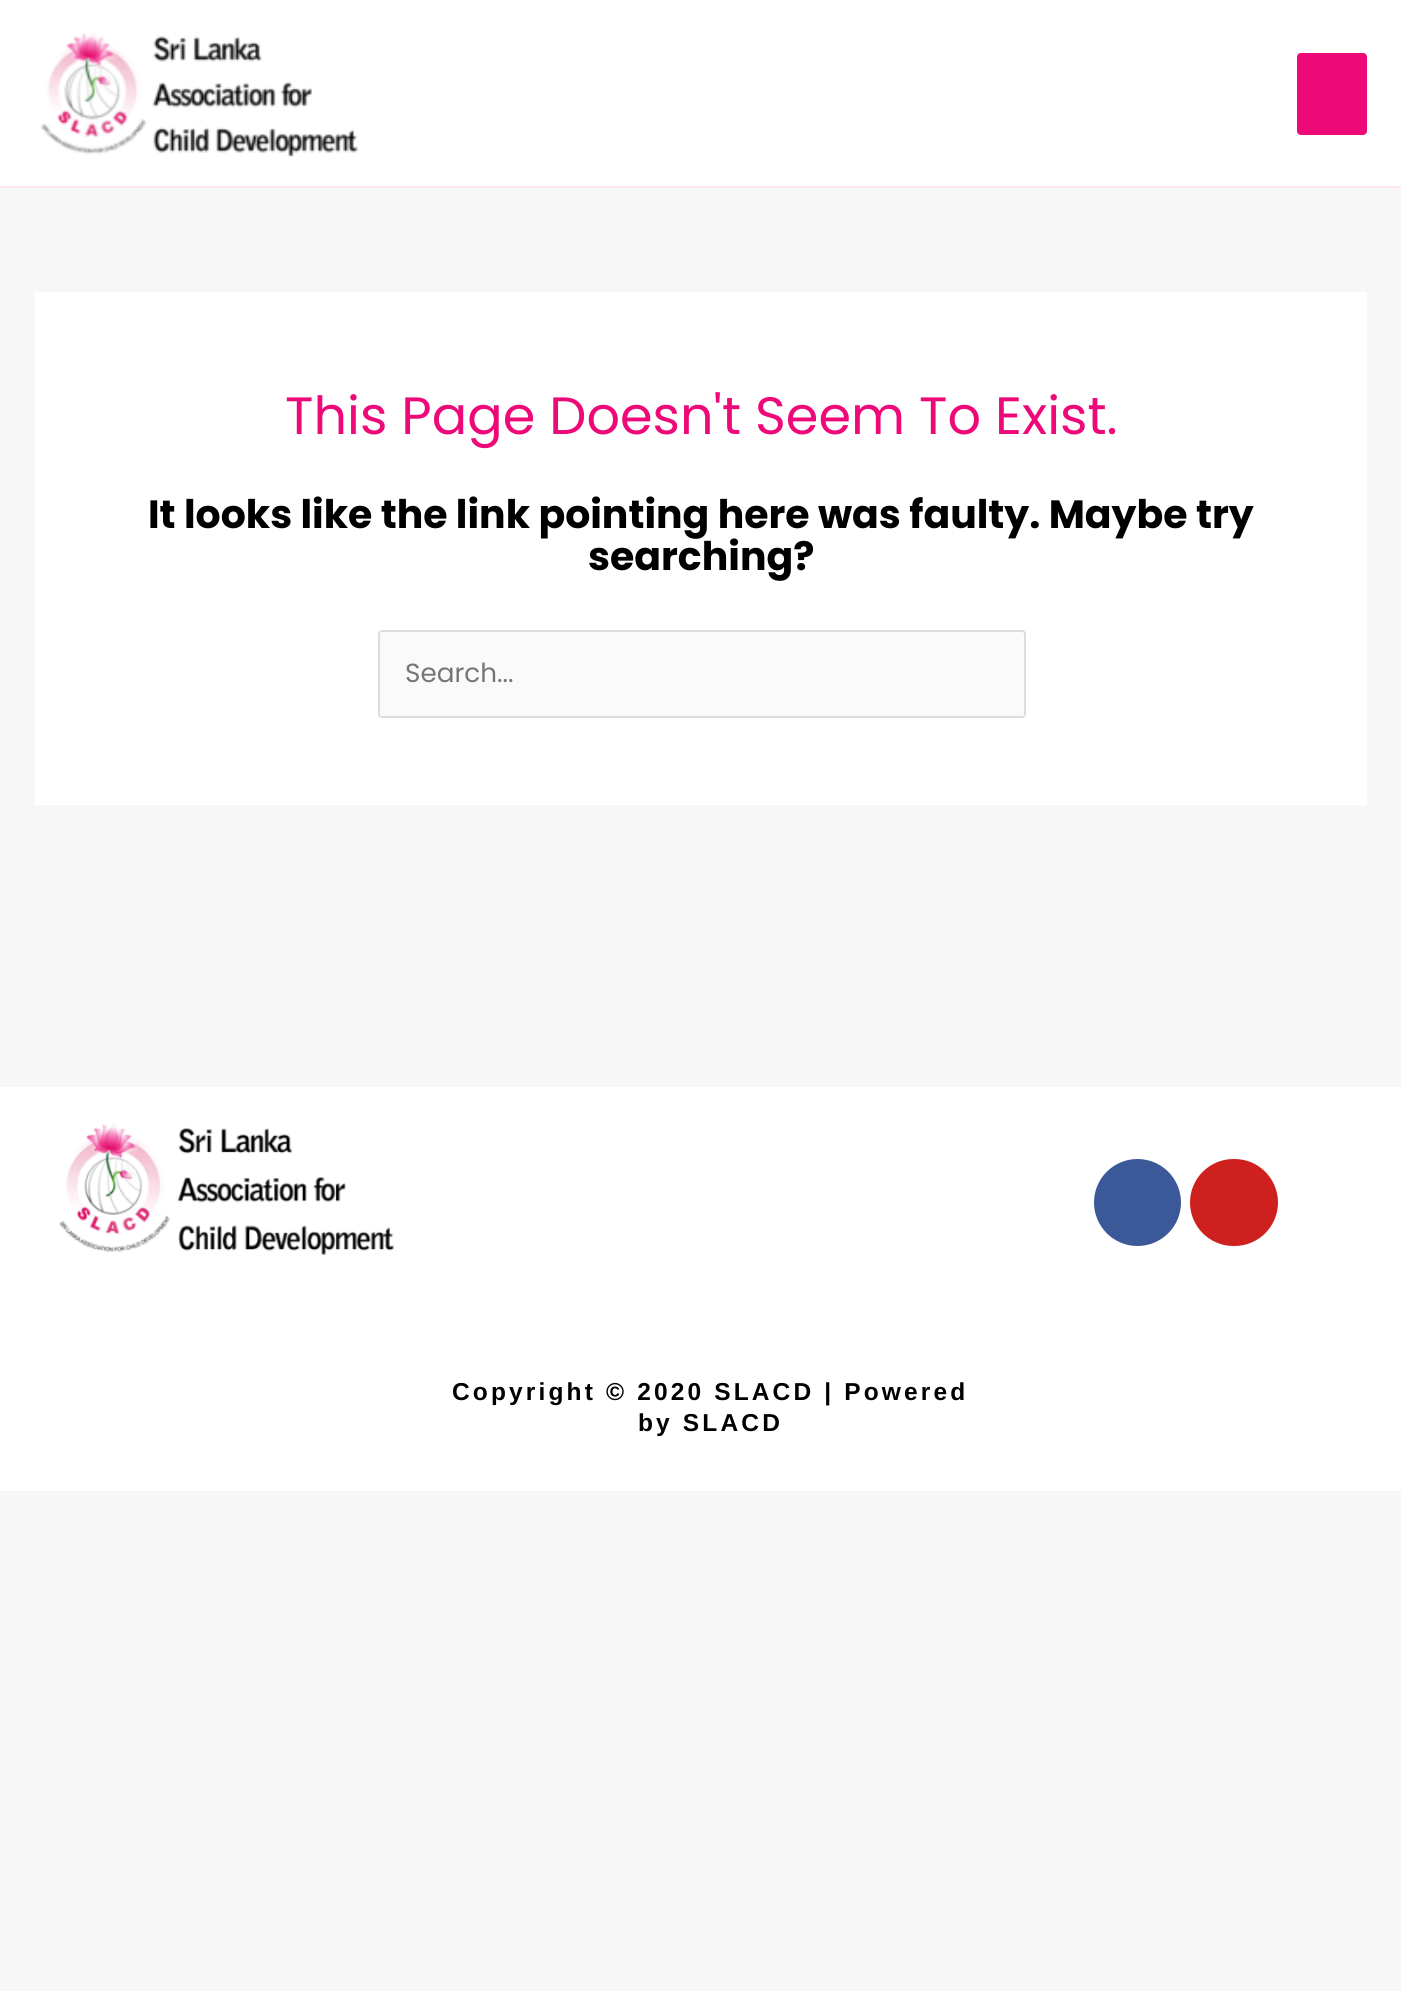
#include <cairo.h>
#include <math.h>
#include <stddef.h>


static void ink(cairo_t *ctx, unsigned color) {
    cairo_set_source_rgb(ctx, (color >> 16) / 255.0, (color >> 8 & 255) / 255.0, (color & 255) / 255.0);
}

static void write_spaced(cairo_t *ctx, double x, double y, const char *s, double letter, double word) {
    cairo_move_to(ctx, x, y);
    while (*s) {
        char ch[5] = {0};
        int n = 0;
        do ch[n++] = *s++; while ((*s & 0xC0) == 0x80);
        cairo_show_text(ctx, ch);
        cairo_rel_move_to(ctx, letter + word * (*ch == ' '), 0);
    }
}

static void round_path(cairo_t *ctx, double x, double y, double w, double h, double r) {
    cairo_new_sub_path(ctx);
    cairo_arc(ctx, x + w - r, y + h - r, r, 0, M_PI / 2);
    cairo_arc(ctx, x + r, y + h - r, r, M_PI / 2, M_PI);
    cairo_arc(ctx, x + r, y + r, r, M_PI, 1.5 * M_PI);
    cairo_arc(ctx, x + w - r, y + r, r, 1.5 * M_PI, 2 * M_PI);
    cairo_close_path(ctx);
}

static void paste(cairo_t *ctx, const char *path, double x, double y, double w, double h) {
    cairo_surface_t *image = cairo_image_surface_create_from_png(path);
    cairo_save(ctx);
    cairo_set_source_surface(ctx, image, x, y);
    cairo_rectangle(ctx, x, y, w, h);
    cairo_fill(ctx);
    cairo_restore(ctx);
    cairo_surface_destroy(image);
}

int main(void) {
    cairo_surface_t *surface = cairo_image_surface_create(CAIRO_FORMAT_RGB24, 1401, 1991);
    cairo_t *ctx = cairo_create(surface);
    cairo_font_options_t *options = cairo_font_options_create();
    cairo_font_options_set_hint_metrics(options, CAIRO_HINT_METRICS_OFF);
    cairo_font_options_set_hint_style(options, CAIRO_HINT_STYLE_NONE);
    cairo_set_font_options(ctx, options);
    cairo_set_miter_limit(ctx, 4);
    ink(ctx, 0xF7F7F7);
    cairo_paint(ctx);
    ink(ctx, 0xFFFFFF);
    cairo_rectangle(ctx, 0, 0, 1401, 186);
    cairo_fill(ctx);
    ink(ctx, 0xFDE6F1);
    cairo_rectangle(ctx, 0, 186, 1401, 2);
    cairo_fill(ctx);
    paste(ctx, "media/1.png", 40, 32, 319, 125);
    ink(ctx, 0xEE0979);
    round_path(ctx, 1297, 53, 70, 82, 4);
    cairo_fill(ctx);
    ink(ctx, 0xFFFFFF);
    cairo_rectangle(ctx, 35, 292, 1332, 513);
    cairo_fill(ctx);
    cairo_select_font_face(ctx, "Poppins", CAIRO_FONT_SLANT_NORMAL, CAIRO_FONT_WEIGHT_NORMAL);
    cairo_set_font_size(ctx, 52.5);
    ink(ctx, 0xEE0979);
    cairo_move_to(ctx, 285, 434);
    cairo_show_text(ctx, "This Page Doesn't Seem To Exist.");
    cairo_select_font_face(ctx, "Poppins", CAIRO_FONT_SLANT_NORMAL, CAIRO_FONT_WEIGHT_BOLD);
    cairo_set_font_size(ctx, 39.4);
    ink(ctx, 0x000000);
    cairo_move_to(ctx, 148, 528);
    cairo_show_text(ctx, "It looks like the link pointing here was faulty. Maybe try");
    cairo_move_to(ctx, 588, 570);
    cairo_show_text(ctx, "searching?");
    ink(ctx, 0xFAFAFA);
    round_path(ctx, 379, 631, 646, 86, 3);
    cairo_fill_preserve(ctx);
    ink(ctx, 0xDDDDDD);
    cairo_stroke(ctx);
    cairo_select_font_face(ctx, "Poppins", CAIRO_FONT_SLANT_NORMAL, CAIRO_FONT_WEIGHT_NORMAL);
    cairo_set_font_size(ctx, 26.25);
    ink(ctx, 0x757575);
    cairo_move_to(ctx, 405, 682);
    cairo_show_text(ctx, "Search...");
    ink(ctx, 0xFFFFFF);
    cairo_rectangle(ctx, 0, 1087, 1401, 404);
    cairo_fill(ctx);
    paste(ctx, "media/2.png", 59, 1123, 336, 132);
    ink(ctx, 0x3B5998);
    cairo_arc(ctx, 1137.5, 1202.5, 43.5, 0, 2 * M_PI);
    cairo_fill(ctx);
    ink(ctx, 0xCD201F);
    round_path(ctx, 1190, 1159, 88, 87, 43.5);
    cairo_fill(ctx);
    cairo_select_font_face(ctx, "Liberation Sans", CAIRO_FONT_SLANT_NORMAL, CAIRO_FONT_WEIGHT_BOLD);
    cairo_set_font_size(ctx, 24.5);
    ink(ctx, 0x000000);
    write_spaced(ctx, 452, 1400, "Copyright © 2020 SLACD | Powered", 3.15, 0);
    write_spaced(ctx, 638, 1431, "by SLACD", 3.15, 0);
    cairo_surface_write_to_png(surface, "image.png");
    cairo_font_options_destroy(options);
    cairo_destroy(ctx);
    cairo_surface_destroy(surface);
    return 0;
}
